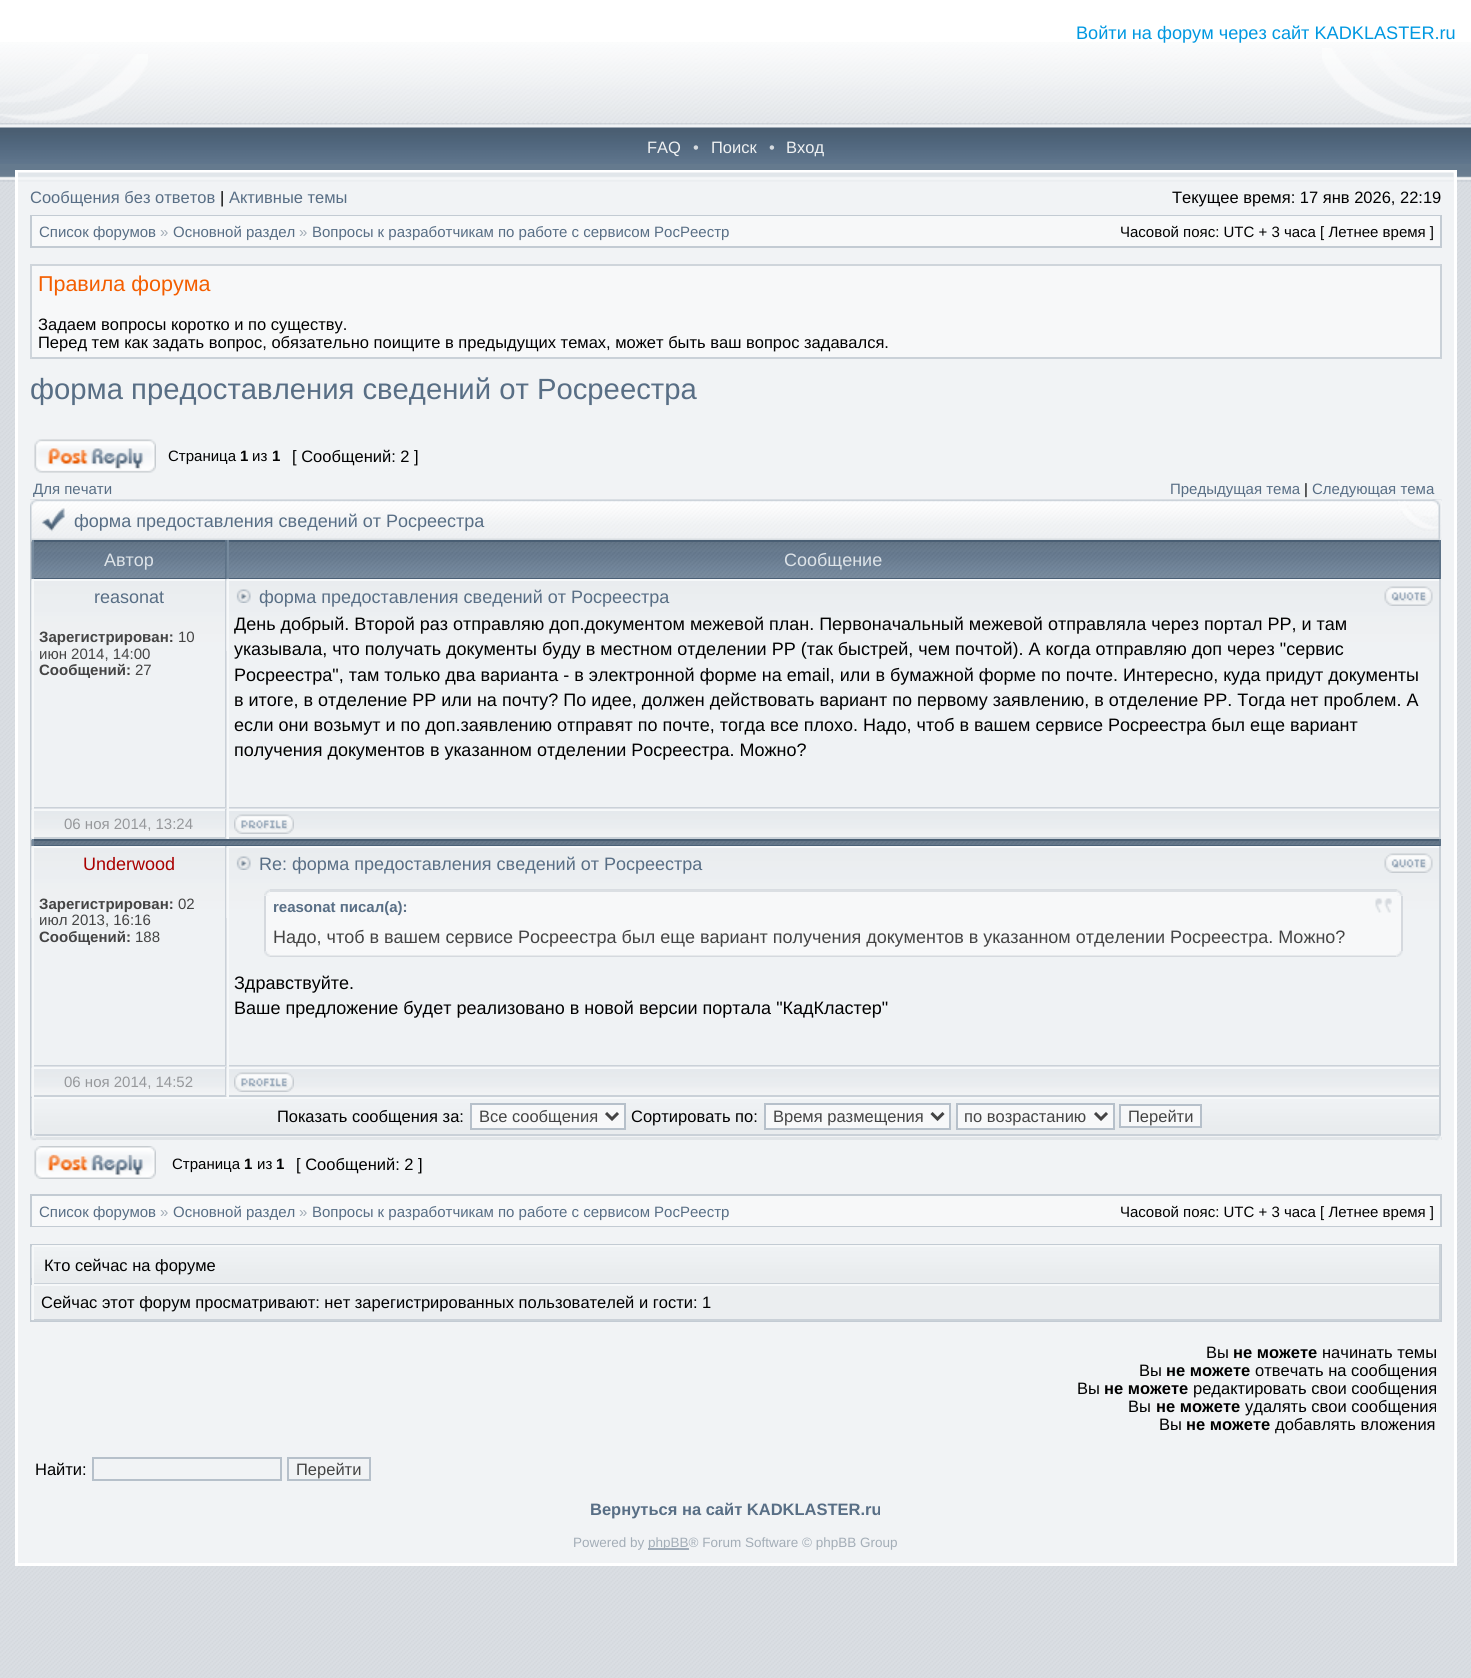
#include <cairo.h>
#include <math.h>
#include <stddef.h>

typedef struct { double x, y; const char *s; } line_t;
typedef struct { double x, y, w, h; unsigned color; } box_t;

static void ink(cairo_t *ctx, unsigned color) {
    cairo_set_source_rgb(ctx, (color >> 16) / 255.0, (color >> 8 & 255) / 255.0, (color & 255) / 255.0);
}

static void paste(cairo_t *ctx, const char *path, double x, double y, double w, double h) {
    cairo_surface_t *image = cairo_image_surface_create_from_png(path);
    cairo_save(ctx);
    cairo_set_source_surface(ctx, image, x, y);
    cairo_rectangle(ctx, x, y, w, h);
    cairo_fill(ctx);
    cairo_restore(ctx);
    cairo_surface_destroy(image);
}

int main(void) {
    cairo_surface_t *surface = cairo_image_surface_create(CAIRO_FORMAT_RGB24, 1471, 1678);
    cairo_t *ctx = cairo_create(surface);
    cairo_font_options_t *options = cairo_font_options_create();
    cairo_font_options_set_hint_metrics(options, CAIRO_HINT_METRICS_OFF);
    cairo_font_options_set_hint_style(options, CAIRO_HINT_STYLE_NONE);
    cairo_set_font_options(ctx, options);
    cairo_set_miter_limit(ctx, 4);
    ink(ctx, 0xFFFFFF);
    cairo_paint(ctx);
    paste(ctx, "media/1.png", 0, 181, 1471, 1497);
    paste(ctx, "media/2.png", 0, 42, 1471, 81);
    paste(ctx, "media/3.png", 0, 54, 148, 68);
    paste(ctx, "media/4.png", 1322, 48, 149, 74);
    cairo_select_font_face(ctx, "Liberation Sans", CAIRO_FONT_SLANT_NORMAL, CAIRO_FONT_WEIGHT_NORMAL);
    cairo_set_font_size(ctx, 18.15);
    ink(ctx, 0x0098E1);
    cairo_move_to(ctx, 1076, 39);
    cairo_show_text(ctx, "Войти на форум через сайт KADKLASTER.ru");
    ink(ctx, 0x657A8E);
    cairo_rectangle(ctx, 0, 164, 1471, 6);
    cairo_fill(ctx);
    paste(ctx, "media/5.png", 0, 123, 1471, 41);
    cairo_set_font_size(ctx, 16.5);
    ink(ctx, 0xEFF1F2);
    cairo_move_to(ctx, 647, 153);
    cairo_show_text(ctx, "FAQ");
    ink(ctx, 0xD5DADF);
    cairo_move_to(ctx, 693, 153);
    cairo_show_text(ctx, "•");
    ink(ctx, 0xEFF1F2);
    cairo_move_to(ctx, 711, 153);
    cairo_show_text(ctx, "Поиск");
    ink(ctx, 0xD5DADF);
    cairo_move_to(ctx, 769, 153);
    cairo_show_text(ctx, "•");
    ink(ctx, 0xEFF1F2);
    cairo_move_to(ctx, 786, 153);
    cairo_show_text(ctx, "Вход");
    paste(ctx, "media/6.png", 0, 170, 1471, 12);
    cairo_rectangle(ctx, 16.5, 171.5, 1439, 1393);
    ink(ctx, 0xFFFFFF);
    cairo_set_line_width(ctx, 3);
    cairo_stroke(ctx);
    ink(ctx, 0xF1F3F5);
    cairo_rectangle(ctx, 18, 173, 1436, 1390);
    cairo_fill(ctx);
    paste(ctx, "media/7.png", 18, 172, 1436, 10);
    ink(ctx, 0x586E85);
    cairo_move_to(ctx, 30, 203);
    cairo_show_text(ctx, "Сообщения без ответов");
    ink(ctx, 0x000000);
    cairo_move_to(ctx, 220, 203);
    cairo_show_text(ctx, "|");
    ink(ctx, 0x586E85);
    cairo_move_to(ctx, 229, 203);
    cairo_show_text(ctx, "Активные темы");
    ink(ctx, 0x000000);
    cairo_move_to(ctx, 1172, 203);
    cairo_show_text(ctx, "Текущее время: 17 янв 2026, 22:19");
    cairo_rectangle(ctx, 31, 216, 1410, 31);
    ink(ctx, 0xC3CBD3);
    cairo_set_line_width(ctx, 2);
    cairo_stroke(ctx);
    {
        static const box_t items[] = {
            {34, 218, 1406, 28, 0xF7F8F9},
            {32, 216, 1408, 2, 0xF6F8F9},
            {32, 216, 2, 30, 0xF6F8F9},
        };
        for (size_t i = 0; i < sizeof items / sizeof *items; i++) {
            ink(ctx, items[i].color);
            cairo_rectangle(ctx, items[i].x, items[i].y, items[i].w, items[i].h);
            cairo_fill(ctx);
        }
    }
    cairo_set_font_size(ctx, 15);
    ink(ctx, 0x586E85);
    cairo_move_to(ctx, 39, 237);
    cairo_show_text(ctx, "Список форумов");
    ink(ctx, 0xA3ADB7);
    cairo_move_to(ctx, 160, 237);
    cairo_show_text(ctx, "»");
    ink(ctx, 0x586E85);
    cairo_move_to(ctx, 173, 237);
    cairo_show_text(ctx, "Основной раздел");
    ink(ctx, 0xA3ADB7);
    cairo_move_to(ctx, 299, 237);
    cairo_show_text(ctx, "»");
    ink(ctx, 0x586E85);
    cairo_move_to(ctx, 312, 237);
    cairo_show_text(ctx, "Вопросы к разработчикам по работе с сервисом РосРеестр");
    ink(ctx, 0x000000);
    cairo_move_to(ctx, 1120, 237);
    cairo_show_text(ctx, "Часовой пояс: UTC + 3 часа [ Летнее время ]");
    {
        static const box_t items[] = {
            {32, 266, 1408, 91, 0xF7F8F9},
            {30, 264, 1412, 2, 0xCFD5DB},
            {1440, 264, 2, 95, 0xCAD1D8},
            {30, 357, 1412, 2, 0xCAD1D8},
            {30, 264, 2, 95, 0xCFD5DB},
        };
        for (size_t i = 0; i < sizeof items / sizeof *items; i++) {
            ink(ctx, items[i].color);
            cairo_rectangle(ctx, items[i].x, items[i].y, items[i].w, items[i].h);
            cairo_fill(ctx);
        }
    }
    cairo_set_font_size(ctx, 21.5);
    ink(ctx, 0xF45E00);
    cairo_move_to(ctx, 38, 291);
    cairo_show_text(ctx, "Правила форума");
    cairo_set_font_size(ctx, 16.5);
    ink(ctx, 0x000000);
    cairo_move_to(ctx, 38, 330);
    cairo_show_text(ctx, "Задаем вопросы коротко и по существу.");
    cairo_move_to(ctx, 38, 348);
    cairo_show_text(ctx, "Перед тем как задать вопрос, обязательно поищите в предыдущих темах, может быть ваш вопрос задавался.");
    cairo_set_font_size(ctx, 29.25);
    ink(ctx, 0x586E85);
    cairo_move_to(ctx, 30, 399);
    cairo_show_text(ctx, "форма предоставления сведений от Росреестра");
    paste(ctx, "media/8.png", 34, 439, 122, 34);
    cairo_set_font_size(ctx, 15);
    ink(ctx, 0x000000);
    cairo_move_to(ctx, 168, 461);
    cairo_show_text(ctx, "Страница");
    cairo_select_font_face(ctx, "Liberation Sans", CAIRO_FONT_SLANT_NORMAL, CAIRO_FONT_WEIGHT_BOLD);
    cairo_move_to(ctx, 240, 461);
    cairo_show_text(ctx, "1");
    cairo_select_font_face(ctx, "Liberation Sans", CAIRO_FONT_SLANT_NORMAL, CAIRO_FONT_WEIGHT_NORMAL);
    cairo_move_to(ctx, 252, 461);
    cairo_show_text(ctx, "из");
    cairo_select_font_face(ctx, "Liberation Sans", CAIRO_FONT_SLANT_NORMAL, CAIRO_FONT_WEIGHT_BOLD);
    cairo_move_to(ctx, 272, 461);
    cairo_show_text(ctx, "1");
    cairo_select_font_face(ctx, "Liberation Sans", CAIRO_FONT_SLANT_NORMAL, CAIRO_FONT_WEIGHT_NORMAL);
    cairo_set_font_size(ctx, 16.5);
    cairo_move_to(ctx, 292, 462);
    cairo_show_text(ctx, "[ Сообщений: 2 ]");
    cairo_set_font_size(ctx, 15);
    ink(ctx, 0x586E85);
    cairo_move_to(ctx, 33, 494);
    cairo_show_text(ctx, "Для печати");
    cairo_move_to(ctx, 1170, 494);
    cairo_show_text(ctx, "Предыдущая тема");
    ink(ctx, 0x000000);
    cairo_move_to(ctx, 1304, 494);
    cairo_show_text(ctx, "|");
    ink(ctx, 0x586E85);
    cairo_move_to(ctx, 1312, 494);
    cairo_show_text(ctx, "Следующая тема");
    ink(ctx, 0xE1E5E8);
    cairo_rectangle(ctx, 30, 1137, 1412, 3);
    cairo_fill(ctx);
    paste(ctx, "media/9.png", 30, 499, 1412, 41);
    paste(ctx, "media/10.png", 30, 499, 35, 41);
    paste(ctx, "media/11.png", 1397, 499, 45, 41);
    cairo_set_font_size(ctx, 18);
    ink(ctx, 0x586E85);
    cairo_move_to(ctx, 74, 527);
    cairo_show_text(ctx, "форма предоставления сведений от Росреестра");
    ink(ctx, 0xC3CBD3);
    cairo_rectangle(ctx, 30, 540, 2, 596);
    cairo_fill(ctx);
    paste(ctx, "media/12.png", 31, 541, 194, 38);
    {
        static const box_t items[] = {
            {32, 540, 195, 2, 0x495E73},
            {225, 540, 2, 39, 0x5D7287},
            {32, 578, 195, 1, 0x4B6177},
            {32, 540, 2, 39, 0x768A9D},
        };
        for (size_t i = 0; i < sizeof items / sizeof *items; i++) {
            ink(ctx, items[i].color);
            cairo_rectangle(ctx, items[i].x, items[i].y, items[i].w, items[i].h);
            cairo_fill(ctx);
        }
    }
    ink(ctx, 0xDDE3E8);
    cairo_move_to(ctx, 104, 566);
    cairo_show_text(ctx, "Автор");
    paste(ctx, "media/13.png", 226, 541, 1213, 38);
    {
        static const box_t items[] = {
            {227, 540, 1213, 2, 0x495E73},
            {1439, 540, 2, 39, 0x5D7287},
            {227, 578, 1213, 1, 0x4B6177},
            {227, 540, 2, 39, 0x768A9D},
        };
        for (size_t i = 0; i < sizeof items / sizeof *items; i++) {
            ink(ctx, items[i].color);
            cairo_rectangle(ctx, items[i].x, items[i].y, items[i].w, items[i].h);
            cairo_fill(ctx);
        }
    }
    ink(ctx, 0xDDE3E8);
    cairo_move_to(ctx, 784, 566);
    cairo_show_text(ctx, "Сообщение");
    paste(ctx, "media/14.png", 31, 579, 194, 230);
    {
        static const box_t items[] = {
            {32, 579, 195, 2, 0xF6F8F9},
            {225, 579, 2, 230, 0xCAD1D8},
            {32, 807, 195, 2, 0xCAD1D8},
            {32, 579, 2, 230, 0xF6F8F9},
        };
        for (size_t i = 0; i < sizeof items / sizeof *items; i++) {
            ink(ctx, items[i].color);
            cairo_rectangle(ctx, items[i].x, items[i].y, items[i].w, items[i].h);
            cairo_fill(ctx);
        }
    }
    ink(ctx, 0x586E85);
    cairo_move_to(ctx, 94, 603);
    cairo_show_text(ctx, "reasonat");
    cairo_select_font_face(ctx, "Liberation Sans", CAIRO_FONT_SLANT_NORMAL, CAIRO_FONT_WEIGHT_BOLD);
    cairo_set_font_size(ctx, 15);
    ink(ctx, 0x444444);
    cairo_move_to(ctx, 39, 642);
    cairo_show_text(ctx, "Зарегистрирован:");
    cairo_select_font_face(ctx, "Liberation Sans", CAIRO_FONT_SLANT_NORMAL, CAIRO_FONT_WEIGHT_NORMAL);
    cairo_move_to(ctx, 178, 642);
    cairo_show_text(ctx, "10");
    cairo_move_to(ctx, 39, 659);
    cairo_show_text(ctx, "июн 2014, 14:00");
    cairo_select_font_face(ctx, "Liberation Sans", CAIRO_FONT_SLANT_NORMAL, CAIRO_FONT_WEIGHT_BOLD);
    cairo_move_to(ctx, 39, 675);
    cairo_show_text(ctx, "Сообщений:");
    cairo_select_font_face(ctx, "Liberation Sans", CAIRO_FONT_SLANT_NORMAL, CAIRO_FONT_WEIGHT_NORMAL);
    cairo_move_to(ctx, 135, 675);
    cairo_show_text(ctx, "27");
    paste(ctx, "media/15.png", 226, 579, 1213, 230);
    {
        static const box_t items[] = {
            {227, 579, 1213, 2, 0xF6F8F9},
            {1439, 579, 2, 230, 0xCAD1D8},
            {227, 807, 1213, 2, 0xCAD1D8},
            {227, 579, 2, 230, 0xF6F8F9},
        };
        for (size_t i = 0; i < sizeof items / sizeof *items; i++) {
            ink(ctx, items[i].color);
            cairo_rectangle(ctx, items[i].x, items[i].y, items[i].w, items[i].h);
            cairo_fill(ctx);
        }
    }
    paste(ctx, "media/16.png", 236, 589, 15, 14);
    cairo_set_font_size(ctx, 18);
    ink(ctx, 0x586E85);
    cairo_move_to(ctx, 259, 603);
    cairo_show_text(ctx, "форма предоставления сведений от Росреестра");
    paste(ctx, "media/17.png", 1384, 586, 49, 20);
    ink(ctx, 0x000000);
    {
        static const line_t items[] = {
            {234, 630, "День добрый. Второй раз отправляю доп.документом межевой план. Первоначальный межевой отправляла через портал РР, и там"},
            {234, 655, "указывала, что получать документы буду в местном отделении РР (так быстрей, чем почтой). А когда отправляю доп через \"сервис"},
            {234, 681, "Росреестра\", там только два варианта - в электронной форме на email, или в бумажной форме по почте. Интересно, куда придут документы"},
            {234, 706, "в итоге, в отделение РР или на почту? По идее, должен действовать вариант по первому заявлению, в отделение РР. Тогда нет проблем. А"},
            {234, 731, "если они возьмут и по доп.заявлению отправят по почте, тогда все плохо. Надо, чтоб в вашем сервисе Росреестра был еще вариант"},
            {234, 756, "получения документов в указанном отделении Росреестра. Можно?"},
        };
        for (size_t i = 0; i < sizeof items / sizeof *items; i++) {
            cairo_move_to(ctx, items[i].x, items[i].y);
            cairo_show_text(ctx, items[i].s);
        }
    }
    paste(ctx, "media/18.png", 31, 808, 196, 31);
    {
        static const box_t items[] = {
            {32, 809, 195, 2, 0xF6F8F9},
            {225, 809, 2, 30, 0xCAD1D8},
            {32, 837, 195, 2, 0xCAD1D8},
            {32, 809, 2, 30, 0xF6F8F9},
        };
        for (size_t i = 0; i < sizeof items / sizeof *items; i++) {
            ink(ctx, items[i].color);
            cairo_rectangle(ctx, items[i].x, items[i].y, items[i].w, items[i].h);
            cairo_fill(ctx);
        }
    }
    cairo_set_font_size(ctx, 15);
    ink(ctx, 0x96989B);
    cairo_move_to(ctx, 64, 829);
    cairo_show_text(ctx, "06 ноя 2014, 13:24");
    paste(ctx, "media/19.png", 226, 808, 1214, 31);
    {
        static const box_t items[] = {
            {227, 809, 1213, 2, 0xF6F8F9},
            {1439, 809, 2, 30, 0xCAD1D8},
            {227, 837, 1213, 2, 0xCAD1D8},
            {227, 809, 2, 30, 0xF6F8F9},
        };
        for (size_t i = 0; i < sizeof items / sizeof *items; i++) {
            ink(ctx, items[i].color);
            cairo_rectangle(ctx, items[i].x, items[i].y, items[i].w, items[i].h);
            cairo_fill(ctx);
        }
    }
    paste(ctx, "media/20.png", 234, 814, 60, 20);
    paste(ctx, "media/21.png", 31, 840, 1408, 6);
    {
        static const box_t items[] = {
            {32, 839, 1408, 2, 0x495E73},
            {1439, 839, 2, 7, 0x5D7287},
            {32, 845, 1408, 1, 0x4B6177},
            {32, 839, 2, 7, 0x768A9D},
        };
        for (size_t i = 0; i < sizeof items / sizeof *items; i++) {
            ink(ctx, items[i].color);
            cairo_rectangle(ctx, items[i].x, items[i].y, items[i].w, items[i].h);
            cairo_fill(ctx);
        }
    }
    paste(ctx, "media/22.png", 31, 846, 194, 221);
    {
        static const box_t items[] = {
            {32, 846, 195, 2, 0xF6F8F9},
            {225, 846, 2, 221, 0xCAD1D8},
            {32, 1065, 195, 2, 0xCAD1D8},
            {32, 846, 2, 221, 0xF6F8F9},
        };
        for (size_t i = 0; i < sizeof items / sizeof *items; i++) {
            ink(ctx, items[i].color);
            cairo_rectangle(ctx, items[i].x, items[i].y, items[i].w, items[i].h);
            cairo_fill(ctx);
        }
    }
    cairo_set_font_size(ctx, 18);
    ink(ctx, 0xAA0000);
    cairo_move_to(ctx, 83, 870);
    cairo_show_text(ctx, "Underwood");
    cairo_select_font_face(ctx, "Liberation Sans", CAIRO_FONT_SLANT_NORMAL, CAIRO_FONT_WEIGHT_BOLD);
    cairo_set_font_size(ctx, 15);
    ink(ctx, 0x444444);
    cairo_move_to(ctx, 39, 909);
    cairo_show_text(ctx, "Зарегистрирован:");
    cairo_select_font_face(ctx, "Liberation Sans", CAIRO_FONT_SLANT_NORMAL, CAIRO_FONT_WEIGHT_NORMAL);
    cairo_move_to(ctx, 178, 909);
    cairo_show_text(ctx, "02");
    cairo_move_to(ctx, 39, 925);
    cairo_show_text(ctx, "июл 2013, 16:16");
    cairo_select_font_face(ctx, "Liberation Sans", CAIRO_FONT_SLANT_NORMAL, CAIRO_FONT_WEIGHT_BOLD);
    cairo_move_to(ctx, 39, 942);
    cairo_show_text(ctx, "Сообщений:");
    cairo_select_font_face(ctx, "Liberation Sans", CAIRO_FONT_SLANT_NORMAL, CAIRO_FONT_WEIGHT_NORMAL);
    cairo_move_to(ctx, 135, 942);
    cairo_show_text(ctx, "188");
    paste(ctx, "media/23.png", 226, 846, 1213, 221);
    {
        static const box_t items[] = {
            {227, 846, 1213, 2, 0xF6F8F9},
            {1439, 846, 2, 221, 0xCAD1D8},
            {227, 1065, 1213, 2, 0xCAD1D8},
            {227, 846, 2, 221, 0xF6F8F9},
        };
        for (size_t i = 0; i < sizeof items / sizeof *items; i++) {
            ink(ctx, items[i].color);
            cairo_rectangle(ctx, items[i].x, items[i].y, items[i].w, items[i].h);
            cairo_fill(ctx);
        }
    }
    paste(ctx, "media/16.png", 236, 856, 15, 14);
    cairo_set_font_size(ctx, 18);
    ink(ctx, 0x586E85);
    cairo_move_to(ctx, 259, 870);
    cairo_show_text(ctx, "Re: форма предоставления сведений от Росреестра");
    paste(ctx, "media/17.png", 1384, 853, 49, 20);
    paste(ctx, "media/24.png", 264, 889, 6, 7);
    ink(ctx, 0xF7F8F9);
    cairo_rectangle(ctx, 270, 890, 1127, 67);
    cairo_fill(ctx);
    cairo_set_source_rgba(ctx, 0.835, 0.855, 0.875, 0.83);
    cairo_rectangle(ctx, 270, 889, 1127, 3);
    cairo_fill(ctx);
    paste(ctx, "media/25.png", 1396, 889, 7, 7);
    ink(ctx, 0xF7F8F9);
    cairo_rectangle(ctx, 266, 896, 4, 55);
    cairo_fill(ctx);
    ink(ctx, 0xD5D9DE);
    cairo_rectangle(ctx, 264, 896, 2, 55);
    cairo_fill(ctx);
    paste(ctx, "media/26.png", 1375, 898, 17, 15);
    cairo_select_font_face(ctx, "Liberation Sans", CAIRO_FONT_SLANT_NORMAL, CAIRO_FONT_WEIGHT_BOLD);
    cairo_set_font_size(ctx, 15);
    ink(ctx, 0x586E85);
    cairo_move_to(ctx, 273, 912);
    cairo_show_text(ctx, "reasonat писал(а):");
    cairo_select_font_face(ctx, "Liberation Sans", CAIRO_FONT_SLANT_NORMAL, CAIRO_FONT_WEIGHT_NORMAL);
    cairo_set_font_size(ctx, 18);
    ink(ctx, 0x444444);
    cairo_move_to(ctx, 273, 943);
    cairo_show_text(ctx, "Надо, чтоб в вашем сервисе Росреестра был еще вариант получения документов в указанном отделении Росреестра. Можно?");
    ink(ctx, 0xF7F8F9);
    cairo_rectangle(ctx, 1397, 896, 4, 55);
    cairo_fill(ctx);
    ink(ctx, 0xD5D9DE);
    cairo_rectangle(ctx, 1401, 896, 2, 55);
    cairo_fill(ctx);
    paste(ctx, "media/27.png", 264, 951, 6, 6);
    paste(ctx, "media/28.png", 270, 955, 1127, 2);
    paste(ctx, "media/29.png", 1396, 951, 7, 6);
    ink(ctx, 0x000000);
    cairo_move_to(ctx, 234, 989);
    cairo_show_text(ctx, "Здравствуйте.");
    cairo_move_to(ctx, 234, 1014);
    cairo_show_text(ctx, "Ваше предложение будет реализовано в новой версии портала \"КадКластер\"");
    paste(ctx, "media/18.png", 31, 1066, 196, 31);
    {
        static const box_t items[] = {
            {32, 1067, 195, 2, 0xF6F8F9},
            {225, 1067, 2, 30, 0xCAD1D8},
            {32, 1095, 195, 2, 0xCAD1D8},
            {32, 1067, 2, 30, 0xF6F8F9},
        };
        for (size_t i = 0; i < sizeof items / sizeof *items; i++) {
            ink(ctx, items[i].color);
            cairo_rectangle(ctx, items[i].x, items[i].y, items[i].w, items[i].h);
            cairo_fill(ctx);
        }
    }
    cairo_set_font_size(ctx, 15);
    ink(ctx, 0x96989B);
    cairo_move_to(ctx, 64, 1087);
    cairo_show_text(ctx, "06 ноя 2014, 14:52");
    paste(ctx, "media/19.png", 226, 1066, 1214, 31);
    {
        static const box_t items[] = {
            {227, 1067, 1213, 2, 0xF6F8F9},
            {1439, 1067, 2, 30, 0xCAD1D8},
            {227, 1095, 1213, 2, 0xCAD1D8},
            {227, 1067, 2, 30, 0xF6F8F9},
        };
        for (size_t i = 0; i < sizeof items / sizeof *items; i++) {
            ink(ctx, items[i].color);
            cairo_rectangle(ctx, items[i].x, items[i].y, items[i].w, items[i].h);
            cairo_fill(ctx);
        }
    }
    paste(ctx, "media/20.png", 234, 1072, 60, 20);
    ink(ctx, 0xE9ECEE);
    cairo_rectangle(ctx, 34, 1129, 1405, 5);
    cairo_fill(ctx);
    paste(ctx, "media/30.png", 31, 1098, 1408, 32);
    {
        static const box_t items[] = {
            {32, 1097, 1408, 2, 0xF6F8F9},
            {1439, 1097, 2, 39, 0xCAD1D8},
            {32, 1134, 1408, 2, 0xCAD1D8},
            {32, 1097, 2, 39, 0xF6F8F9},
        };
        for (size_t i = 0; i < sizeof items / sizeof *items; i++) {
            ink(ctx, items[i].color);
            cairo_rectangle(ctx, items[i].x, items[i].y, items[i].w, items[i].h);
            cairo_fill(ctx);
        }
    }
    cairo_set_font_size(ctx, 16.5);
    ink(ctx, 0x000000);
    cairo_move_to(ctx, 277, 1122);
    cairo_show_text(ctx, "Показать сообщения за:");
    ink(ctx, 0xF7F8F9);
    cairo_rectangle(ctx, 471, 1104, 154, 25);
    cairo_fill_preserve(ctx);
    ink(ctx, 0xB6C0CA);
    cairo_stroke(ctx);
    cairo_new_path(ctx);
    cairo_move_to(ctx, 606, 1113);
    cairo_line_to(ctx, 612, 1119);
    cairo_line_to(ctx, 618, 1113);
    ink(ctx, 0x444444);
    cairo_set_line_width(ctx, 3);
    cairo_stroke(ctx);
    cairo_move_to(ctx, 479, 1122);
    cairo_show_text(ctx, "Все сообщения");
    ink(ctx, 0x000000);
    cairo_move_to(ctx, 631, 1122);
    cairo_show_text(ctx, "Сортировать по:");
    ink(ctx, 0xF7F8F9);
    cairo_rectangle(ctx, 765, 1104, 185, 25);
    cairo_fill_preserve(ctx);
    ink(ctx, 0xB6C0CA);
    cairo_set_line_width(ctx, 2);
    cairo_stroke(ctx);
    cairo_new_path(ctx);
    cairo_move_to(ctx, 931.5, 1113);
    cairo_line_to(ctx, 937.5, 1119);
    cairo_line_to(ctx, 943.5, 1113);
    ink(ctx, 0x444444);
    cairo_set_line_width(ctx, 3);
    cairo_stroke(ctx);
    cairo_move_to(ctx, 773, 1122);
    cairo_show_text(ctx, "Время размещения");
    ink(ctx, 0xF7F8F9);
    cairo_rectangle(ctx, 957, 1104, 157, 25);
    cairo_fill_preserve(ctx);
    ink(ctx, 0xB6C0CA);
    cairo_set_line_width(ctx, 2);
    cairo_stroke(ctx);
    cairo_new_path(ctx);
    cairo_move_to(ctx, 1095, 1113);
    cairo_line_to(ctx, 1101, 1119);
    cairo_line_to(ctx, 1107, 1113);
    ink(ctx, 0x444444);
    cairo_set_line_width(ctx, 3);
    cairo_stroke(ctx);
    cairo_move_to(ctx, 964, 1122);
    cairo_show_text(ctx, "по возрастанию");
    ink(ctx, 0xF7F8F9);
    cairo_rectangle(ctx, 1120, 1105, 81, 22);
    cairo_fill_preserve(ctx);
    ink(ctx, 0xB6C0CA);
    cairo_set_line_width(ctx, 2);
    cairo_stroke(ctx);
    ink(ctx, 0x444444);
    cairo_move_to(ctx, 1128, 1122);
    cairo_show_text(ctx, "Перейти");
    paste(ctx, "media/31.png", 30, 1135, 6, 6);
    paste(ctx, "media/32.png", 1435, 1135, 7, 6);
    paste(ctx, "media/33.png", 34, 1146, 122, 33);
    cairo_set_font_size(ctx, 15);
    ink(ctx, 0x000000);
    cairo_move_to(ctx, 172, 1169);
    cairo_show_text(ctx, "Страница");
    cairo_select_font_face(ctx, "Liberation Sans", CAIRO_FONT_SLANT_NORMAL, CAIRO_FONT_WEIGHT_BOLD);
    cairo_move_to(ctx, 244, 1169);
    cairo_show_text(ctx, "1");
    cairo_select_font_face(ctx, "Liberation Sans", CAIRO_FONT_SLANT_NORMAL, CAIRO_FONT_WEIGHT_NORMAL);
    cairo_move_to(ctx, 257, 1169);
    cairo_show_text(ctx, "из");
    cairo_select_font_face(ctx, "Liberation Sans", CAIRO_FONT_SLANT_NORMAL, CAIRO_FONT_WEIGHT_BOLD);
    cairo_move_to(ctx, 276, 1169);
    cairo_show_text(ctx, "1");
    cairo_select_font_face(ctx, "Liberation Sans", CAIRO_FONT_SLANT_NORMAL, CAIRO_FONT_WEIGHT_NORMAL);
    cairo_set_font_size(ctx, 16.5);
    cairo_move_to(ctx, 296, 1170);
    cairo_show_text(ctx, "[ Сообщений: 2 ]");
    cairo_rectangle(ctx, 31, 1195, 1410, 31);
    ink(ctx, 0xC3CBD3);
    cairo_stroke(ctx);
    {
        static const box_t items[] = {
            {34, 1198, 1406, 28, 0xF7F8F9},
            {32, 1196, 1408, 2, 0xF6F8F9},
            {32, 1196, 2, 30, 0xF6F8F9},
        };
        for (size_t i = 0; i < sizeof items / sizeof *items; i++) {
            ink(ctx, items[i].color);
            cairo_rectangle(ctx, items[i].x, items[i].y, items[i].w, items[i].h);
            cairo_fill(ctx);
        }
    }
    cairo_set_font_size(ctx, 15);
    ink(ctx, 0x586E85);
    cairo_move_to(ctx, 39, 1217);
    cairo_show_text(ctx, "Список форумов");
    ink(ctx, 0xA3ADB7);
    cairo_move_to(ctx, 160, 1217);
    cairo_show_text(ctx, "»");
    ink(ctx, 0x586E85);
    cairo_move_to(ctx, 173, 1217);
    cairo_show_text(ctx, "Основной раздел");
    ink(ctx, 0xA3ADB7);
    cairo_move_to(ctx, 299, 1217);
    cairo_show_text(ctx, "»");
    ink(ctx, 0x586E85);
    cairo_move_to(ctx, 312, 1217);
    cairo_show_text(ctx, "Вопросы к разработчикам по работе с сервисом РосРеестр");
    ink(ctx, 0x000000);
    cairo_move_to(ctx, 1120, 1217);
    cairo_show_text(ctx, "Часовой пояс: UTC + 3 часа [ Летнее время ]");
    cairo_rectangle(ctx, 31, 1245, 1410, 76);
    ink(ctx, 0xC3CBD3);
    cairo_stroke(ctx);
    ink(ctx, 0xE9ECEE);
    cairo_rectangle(ctx, 34, 1278, 1405, 5);
    cairo_fill(ctx);
    paste(ctx, "media/34.png", 31, 1246, 1408, 32);
    {
        static const box_t items[] = {
            {32, 1245, 1408, 2, 0xF6F8F9},
            {1439, 1245, 2, 39, 0xCAD1D8},
            {32, 1283, 1408, 1, 0xCAD1D8},
            {32, 1245, 2, 39, 0xF6F8F9},
        };
        for (size_t i = 0; i < sizeof items / sizeof *items; i++) {
            ink(ctx, items[i].color);
            cairo_rectangle(ctx, items[i].x, items[i].y, items[i].w, items[i].h);
            cairo_fill(ctx);
        }
    }
    cairo_set_font_size(ctx, 16.5);
    ink(ctx, 0x000000);
    cairo_move_to(ctx, 44, 1271);
    cairo_show_text(ctx, "Кто сейчас на форуме");
    {
        static const box_t items[] = {
            {31, 1285, 1408, 35, 0xEBEEF0},
            {32, 1284, 1408, 2, 0xF6F8F9},
            {1439, 1284, 2, 36, 0xCAD1D8},
            {32, 1319, 1408, 2, 0xCAD1D8},
            {32, 1284, 2, 36, 0xF6F8F9},
        };
        for (size_t i = 0; i < sizeof items / sizeof *items; i++) {
            ink(ctx, items[i].color);
            cairo_rectangle(ctx, items[i].x, items[i].y, items[i].w, items[i].h);
            cairo_fill(ctx);
        }
    }
    ink(ctx, 0x000000);
    cairo_move_to(ctx, 41, 1308);
    cairo_show_text(ctx, "Сейчас этот форум просматривают: нет зарегистрированных пользователей и гости: 1");
    cairo_move_to(ctx, 1206, 1358);
    cairo_show_text(ctx, "Вы");
    cairo_select_font_face(ctx, "Liberation Sans", CAIRO_FONT_SLANT_NORMAL, CAIRO_FONT_WEIGHT_BOLD);
    cairo_move_to(ctx, 1233, 1358);
    cairo_show_text(ctx, "не можете");
    cairo_select_font_face(ctx, "Liberation Sans", CAIRO_FONT_SLANT_NORMAL, CAIRO_FONT_WEIGHT_NORMAL);
    cairo_move_to(ctx, 1322, 1358);
    cairo_show_text(ctx, "начинать темы");
    cairo_move_to(ctx, 1139, 1376);
    cairo_show_text(ctx, "Вы");
    cairo_select_font_face(ctx, "Liberation Sans", CAIRO_FONT_SLANT_NORMAL, CAIRO_FONT_WEIGHT_BOLD);
    cairo_move_to(ctx, 1166, 1376);
    cairo_show_text(ctx, "не можете");
    cairo_select_font_face(ctx, "Liberation Sans", CAIRO_FONT_SLANT_NORMAL, CAIRO_FONT_WEIGHT_NORMAL);
    cairo_move_to(ctx, 1255, 1376);
    cairo_show_text(ctx, "отвечать на сообщения");
    cairo_move_to(ctx, 1077, 1394);
    cairo_show_text(ctx, "Вы");
    cairo_select_font_face(ctx, "Liberation Sans", CAIRO_FONT_SLANT_NORMAL, CAIRO_FONT_WEIGHT_BOLD);
    cairo_move_to(ctx, 1104, 1394);
    cairo_show_text(ctx, "не можете");
    cairo_select_font_face(ctx, "Liberation Sans", CAIRO_FONT_SLANT_NORMAL, CAIRO_FONT_WEIGHT_NORMAL);
    cairo_move_to(ctx, 1193, 1394);
    cairo_show_text(ctx, "редактировать свои сообщения");
    cairo_move_to(ctx, 1128, 1412);
    cairo_show_text(ctx, "Вы");
    cairo_select_font_face(ctx, "Liberation Sans", CAIRO_FONT_SLANT_NORMAL, CAIRO_FONT_WEIGHT_BOLD);
    cairo_move_to(ctx, 1156, 1412);
    cairo_show_text(ctx, "не можете");
    cairo_select_font_face(ctx, "Liberation Sans", CAIRO_FONT_SLANT_NORMAL, CAIRO_FONT_WEIGHT_NORMAL);
    cairo_move_to(ctx, 1245, 1412);
    cairo_show_text(ctx, "удалять свои сообщения");
    cairo_move_to(ctx, 1159, 1430);
    cairo_show_text(ctx, "Вы");
    cairo_select_font_face(ctx, "Liberation Sans", CAIRO_FONT_SLANT_NORMAL, CAIRO_FONT_WEIGHT_BOLD);
    cairo_move_to(ctx, 1186, 1430);
    cairo_show_text(ctx, "не можете");
    cairo_select_font_face(ctx, "Liberation Sans", CAIRO_FONT_SLANT_NORMAL, CAIRO_FONT_WEIGHT_NORMAL);
    cairo_move_to(ctx, 1275, 1430);
    cairo_show_text(ctx, "добавлять вложения");
    cairo_move_to(ctx, 35, 1475);
    cairo_show_text(ctx, "Найти:");
    cairo_rectangle(ctx, 93, 1458, 188, 22);
    ink(ctx, 0xB6C0CA);
    cairo_stroke(ctx);
    cairo_rectangle(ctx, 288, 1458, 82, 22);
    cairo_stroke(ctx);
    ink(ctx, 0x444444);
    cairo_move_to(ctx, 296, 1475);
    cairo_show_text(ctx, "Перейти");
    cairo_select_font_face(ctx, "Liberation Sans", CAIRO_FONT_SLANT_NORMAL, CAIRO_FONT_WEIGHT_BOLD);
    ink(ctx, 0x586E85);
    cairo_move_to(ctx, 590, 1515);
    cairo_show_text(ctx, "Вернуться на сайт KADKLASTER.ru");
    cairo_select_font_face(ctx, "Liberation Sans", CAIRO_FONT_SLANT_NORMAL, CAIRO_FONT_WEIGHT_NORMAL);
    cairo_set_font_size(ctx, 13.5);
    ink(ctx, 0xA3ADB7);
    cairo_move_to(ctx, 573, 1547);
    cairo_show_text(ctx, "Powered by");
    ink(ctx, 0xA0ACB9);
    cairo_rectangle(ctx, 648, 1548, 41, 2);
    cairo_fill(ctx);
    ink(ctx, 0xA3ADB7);
    cairo_move_to(ctx, 648, 1547);
    cairo_show_text(ctx, "phpBB® Forum Software © phpBB Group");
    cairo_surface_write_to_png(surface, "image.png");
    cairo_font_options_destroy(options);
    cairo_destroy(ctx);
    cairo_surface_destroy(surface);
    return 0;
}
